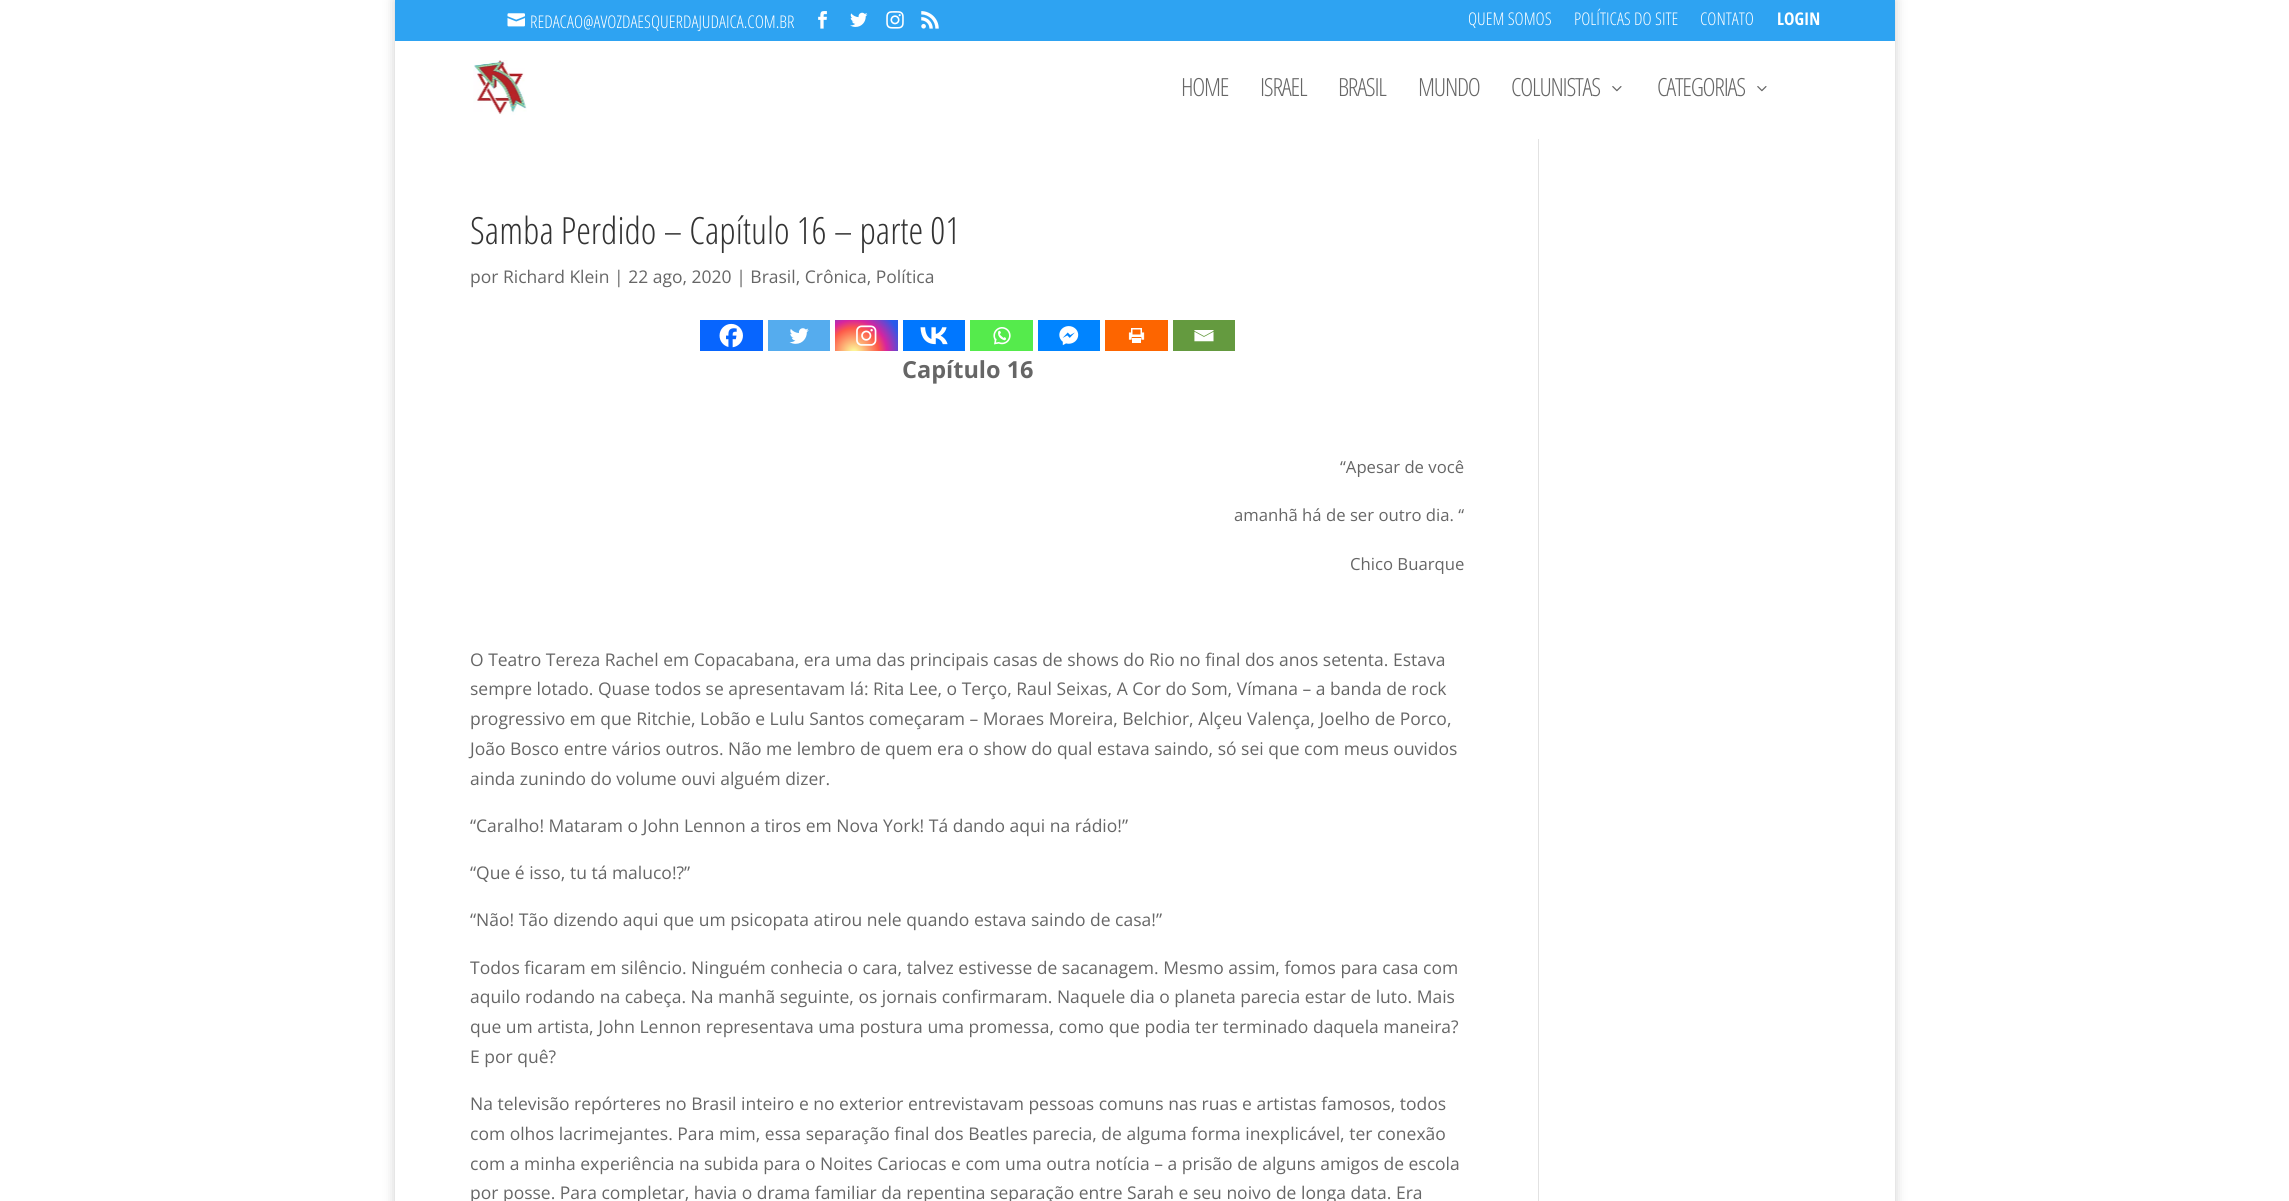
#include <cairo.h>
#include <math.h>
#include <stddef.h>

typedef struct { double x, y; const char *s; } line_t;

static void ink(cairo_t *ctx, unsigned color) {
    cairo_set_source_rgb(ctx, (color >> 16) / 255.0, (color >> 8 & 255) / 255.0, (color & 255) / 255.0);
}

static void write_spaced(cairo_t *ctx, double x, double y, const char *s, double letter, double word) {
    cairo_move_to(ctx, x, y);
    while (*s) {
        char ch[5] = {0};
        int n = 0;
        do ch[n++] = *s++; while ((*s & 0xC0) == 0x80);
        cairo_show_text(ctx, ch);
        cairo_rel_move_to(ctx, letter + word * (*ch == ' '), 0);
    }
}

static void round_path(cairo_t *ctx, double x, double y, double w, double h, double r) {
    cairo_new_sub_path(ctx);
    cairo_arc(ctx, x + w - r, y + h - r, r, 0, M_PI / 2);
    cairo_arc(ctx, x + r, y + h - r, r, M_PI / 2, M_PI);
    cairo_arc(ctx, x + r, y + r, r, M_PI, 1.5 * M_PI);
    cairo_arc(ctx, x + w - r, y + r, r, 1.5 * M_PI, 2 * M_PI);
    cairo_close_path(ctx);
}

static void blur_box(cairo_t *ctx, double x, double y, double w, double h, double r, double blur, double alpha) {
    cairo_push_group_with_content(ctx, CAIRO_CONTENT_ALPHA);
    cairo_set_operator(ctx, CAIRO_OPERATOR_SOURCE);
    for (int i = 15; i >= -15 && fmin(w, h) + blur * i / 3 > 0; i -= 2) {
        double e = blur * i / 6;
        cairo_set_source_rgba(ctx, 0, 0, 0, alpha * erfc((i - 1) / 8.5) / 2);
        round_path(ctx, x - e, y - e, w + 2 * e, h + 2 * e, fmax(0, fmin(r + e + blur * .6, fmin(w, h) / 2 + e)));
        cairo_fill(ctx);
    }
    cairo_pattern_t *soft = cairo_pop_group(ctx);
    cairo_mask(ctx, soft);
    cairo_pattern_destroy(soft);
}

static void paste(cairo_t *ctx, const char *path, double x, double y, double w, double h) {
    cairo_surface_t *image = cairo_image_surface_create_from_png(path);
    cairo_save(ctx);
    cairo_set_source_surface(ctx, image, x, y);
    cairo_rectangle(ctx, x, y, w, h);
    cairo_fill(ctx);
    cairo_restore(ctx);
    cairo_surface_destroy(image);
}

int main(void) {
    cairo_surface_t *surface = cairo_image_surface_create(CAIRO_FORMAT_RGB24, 2289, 1201);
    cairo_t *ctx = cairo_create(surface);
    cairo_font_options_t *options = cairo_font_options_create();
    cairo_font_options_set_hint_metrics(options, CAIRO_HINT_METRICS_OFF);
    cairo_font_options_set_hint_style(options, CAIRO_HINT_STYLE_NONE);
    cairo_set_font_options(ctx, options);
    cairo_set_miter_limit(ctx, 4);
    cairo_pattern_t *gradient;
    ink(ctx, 0xFFFFFF);
    cairo_paint(ctx);
    cairo_save(ctx);
    cairo_set_fill_rule(ctx, CAIRO_FILL_RULE_EVEN_ODD);
    cairo_new_path(ctx);
    cairo_move_to(ctx, 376, 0);
    cairo_line_to(ctx, 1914, 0);
    cairo_line_to(ctx, 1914, 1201);
    cairo_line_to(ctx, 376, 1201);
    cairo_close_path(ctx);
    cairo_move_to(ctx, 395, 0);
    cairo_line_to(ctx, 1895, 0);
    cairo_line_to(ctx, 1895, 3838);
    cairo_line_to(ctx, 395, 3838);
    cairo_close_path(ctx);
    cairo_clip(ctx);
    ink(ctx, 0x000000);
    blur_box(ctx, 395, 0, 1500, 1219, 0, 6, 0.2);
    cairo_restore(ctx);
    ink(ctx, 0x2EA3F2);
    cairo_rectangle(ctx, 395, 0, 1500, 41);
    cairo_fill(ctx);
    paste(ctx, "media/1.png", 507, 13, 18, 14);
    cairo_select_font_face(ctx, "Open Sans Condensed Light", CAIRO_FONT_SLANT_NORMAL, CAIRO_FONT_WEIGHT_NORMAL);
    cairo_set_font_size(ctx, 17.5);
    ink(ctx, 0xFFFFFF);
    cairo_move_to(ctx, 530, 28);
    cairo_show_text(ctx, "REDACAO@AVOZDAESQUERDAJUDAICA.COM.BR");
    paste(ctx, "media/2.png", 818, 11, 9, 18);
    paste(ctx, "media/3.png", 850, 12, 18, 15);
    paste(ctx, "media/4.png", 886, 11, 18, 18);
    paste(ctx, "media/5.png", 921, 11, 18, 18);
    {
        static const line_t items[] = {
            {1468, 25, "QUEM SOMOS"},
            {1574, 25, "POLÍTICAS DO SITE"},
            {1700, 25, "CONTATO"},
        };
        for (size_t i = 0; i < sizeof items / sizeof *items; i++) {
            cairo_move_to(ctx, items[i].x, items[i].y);
            cairo_show_text(ctx, items[i].s);
        }
    }
    cairo_select_font_face(ctx, "Open Sans Condensed", CAIRO_FONT_SLANT_NORMAL, CAIRO_FONT_WEIGHT_BOLD);
    cairo_move_to(ctx, 1777, 25);
    cairo_show_text(ctx, "LOGIN");
    paste(ctx, "media/6.png", 473, 60, 54, 55);
    cairo_select_font_face(ctx, "Open Sans Condensed Light", CAIRO_FONT_SLANT_NORMAL, CAIRO_FONT_WEIGHT_NORMAL);
    cairo_set_font_size(ctx, 25);
    ink(ctx, 0x666666);
    {
        static const line_t items[] = {
            {1181, 96, "HOME"},
            {1260, 96, "ISRAEL"},
            {1338, 96, "BRASIL"},
            {1418, 96, "MUNDO"},
            {1511, 96, "COLUNISTAS"},
        };
        for (size_t i = 0; i < sizeof items / sizeof *items; i++) {
            write_spaced(ctx, items[i].x, items[i].y, items[i].s, -1.25, 0);
        }
    }
    paste(ctx, "media/7.png", 1612, 86, 10, 6);
    write_spaced(ctx, 1657, 96, "CATEGORIAS", -1.25, 0);
    paste(ctx, "media/7.png", 1757, 86, 10, 6);
    cairo_set_font_size(ctx, 37.5);
    ink(ctx, 0x333333);
    cairo_move_to(ctx, 470, 244);
    cairo_show_text(ctx, "Samba Perdido – Capítulo 16 – parte 01");
    cairo_select_font_face(ctx, "Open Sans", CAIRO_FONT_SLANT_NORMAL, CAIRO_FONT_WEIGHT_NORMAL);
    cairo_set_font_size(ctx, 17.5);
    ink(ctx, 0x666666);
    cairo_move_to(ctx, 470, 283);
    cairo_show_text(ctx, "por Richard Klein | 22 ago, 2020 | Brasil, Crônica, Política");
    ink(ctx, 0x0765FE);
    cairo_rectangle(ctx, 700, 320, 63, 31);
    cairo_fill(ctx);
    paste(ctx, "media/8.png", 719, 323, 24, 25);
    ink(ctx, 0x55ACEE);
    cairo_rectangle(ctx, 768, 320, 62, 31);
    cairo_fill(ctx);
    paste(ctx, "media/9.png", 789, 328, 20, 16);
    gradient = cairo_pattern_create_radial(854, 353, 0, 854, 353, 55);
    cairo_pattern_add_color_stop_rgba(gradient, 0, 0.992, 0.957, 0.592, 1);
    cairo_pattern_add_color_stop_rgba(gradient, 0.05, 0.992, 0.957, 0.592, 1);
    cairo_pattern_add_color_stop_rgba(gradient, 0.45, 0.992, 0.349, 0.286, 1);
    cairo_pattern_add_color_stop_rgba(gradient, 0.6, 0.839, 0.141, 0.624, 1);
    cairo_pattern_add_color_stop_rgba(gradient, 0.9, 0.157, 0.353, 0.922, 1);
    cairo_set_source(ctx, gradient);
    cairo_pattern_destroy(gradient);
    cairo_rectangle(ctx, 835, 320, 63, 31);
    cairo_fill(ctx);
    paste(ctx, "media/10.png", 856, 325, 21, 21);
    ink(ctx, 0x0077FF);
    cairo_rectangle(ctx, 903, 320, 62, 31);
    cairo_fill(ctx);
    paste(ctx, "media/11.png", 920, 327, 28, 18);
    ink(ctx, 0x55EB4C);
    cairo_rectangle(ctx, 970, 320, 63, 31);
    cairo_fill(ctx);
    paste(ctx, "media/12.png", 993, 327, 18, 18);
    ink(ctx, 0x0084FF);
    cairo_rectangle(ctx, 1038, 320, 62, 31);
    cairo_fill(ctx);
    paste(ctx, "media/13.png", 1059, 326, 20, 20);
    ink(ctx, 0xFD6500);
    cairo_rectangle(ctx, 1105, 320, 63, 31);
    cairo_fill(ctx);
    paste(ctx, "media/14.png", 1128, 328, 17, 15);
    ink(ctx, 0x649A3F);
    cairo_rectangle(ctx, 1173, 320, 62, 31);
    cairo_fill(ctx);
    paste(ctx, "media/15.png", 1194, 330, 20, 12);
    cairo_select_font_face(ctx, "Open Sans", CAIRO_FONT_SLANT_NORMAL, CAIRO_FONT_WEIGHT_BOLD);
    cairo_set_font_size(ctx, 23.5);
    ink(ctx, 0x666666);
    cairo_move_to(ctx, 902, 378);
    cairo_show_text(ctx, "Capítulo 16");
    cairo_select_font_face(ctx, "Open Sans", CAIRO_FONT_SLANT_NORMAL, CAIRO_FONT_WEIGHT_NORMAL);
    cairo_set_font_size(ctx, 16.7);
    {
        static const line_t items[] = {
            {1340, 473, "“Apesar de você"},
            {1234, 521, "amanhã há de ser outro dia. “"},
            {1350, 570, "Chico Buarque"},
        };
        for (size_t i = 0; i < sizeof items / sizeof *items; i++) {
            cairo_move_to(ctx, items[i].x, items[i].y);
            cairo_show_text(ctx, items[i].s);
        }
    }
    cairo_set_font_size(ctx, 17.5);
    {
        static const line_t items[] = {
            {470, 666, "O Teatro Tereza Rachel em Copacabana, era uma das principais casas de shows do Rio no final dos anos setenta. Estava"},
            {470, 695, "sempre lotado. Quase todos se apresentavam lá: Rita Lee, o Terço, Raul Seixas, A Cor do Som, Vímana – a banda de rock"},
            {470, 725, "progressivo em que Ritchie, Lobão e Lulu Santos começaram – Moraes Moreira, Belchior, Alçeu Valença, Joelho de Porco,"},
            {470, 755, "João Bosco entre vários outros. Não me lembro de quem era o show do qual estava saindo, só sei que com meus ouvidos"},
            {470, 785, "ainda zunindo do volume ouvi alguém dizer."},
            {470, 832, "“Caralho! Mataram o John Lennon a tiros em Nova York! Tá dando aqui na rádio!”"},
            {470, 879, "“Que é isso, tu tá maluco!?”"},
            {470, 926, "“Não! Tão dizendo aqui que um psicopata atirou nele quando estava saindo de casa!”"},
            {470, 974, "Todos ficaram em silêncio. Ninguém conhecia o cara, talvez estivesse de sacanagem. Mesmo assim, fomos para casa com"},
            {470, 1003, "aquilo rodando na cabeça. Na manhã seguinte, os jornais confirmaram. Naquele dia o planeta parecia estar de luto. Mais"},
            {470, 1033, "que um artista, John Lennon representava uma postura uma promessa, como que podia ter terminado daquela maneira?"},
            {470, 1063, "E por quê?"},
            {470, 1110, "Na televisão repórteres no Brasil inteiro e no exterior entrevistavam pessoas comuns nas ruas e artistas famosos, todos"},
            {470, 1140, "com olhos lacrimejantes. Para mim, essa separação final dos Beatles parecia, de alguma forma inexplicável, ter conexão"},
            {470, 1170, "com a minha experiência na subida para o Noites Cariocas e com uma outra notícia – a prisão de alguns amigos de escola"},
            {470, 1199, "por posse. Para completar, havia o drama familiar da repentina separação entre Sarah e seu noivo de longa data. Era"},
        };
        for (size_t i = 0; i < sizeof items / sizeof *items; i++) {
            cairo_move_to(ctx, items[i].x, items[i].y);
            cairo_show_text(ctx, items[i].s);
        }
    }
    ink(ctx, 0xE2E2E2);
    cairo_rectangle(ctx, 1538, 139, 1, 1062);
    cairo_fill(ctx);
    cairo_surface_write_to_png(surface, "image.png");
    cairo_font_options_destroy(options);
    cairo_destroy(ctx);
    cairo_surface_destroy(surface);
    return 0;
}
